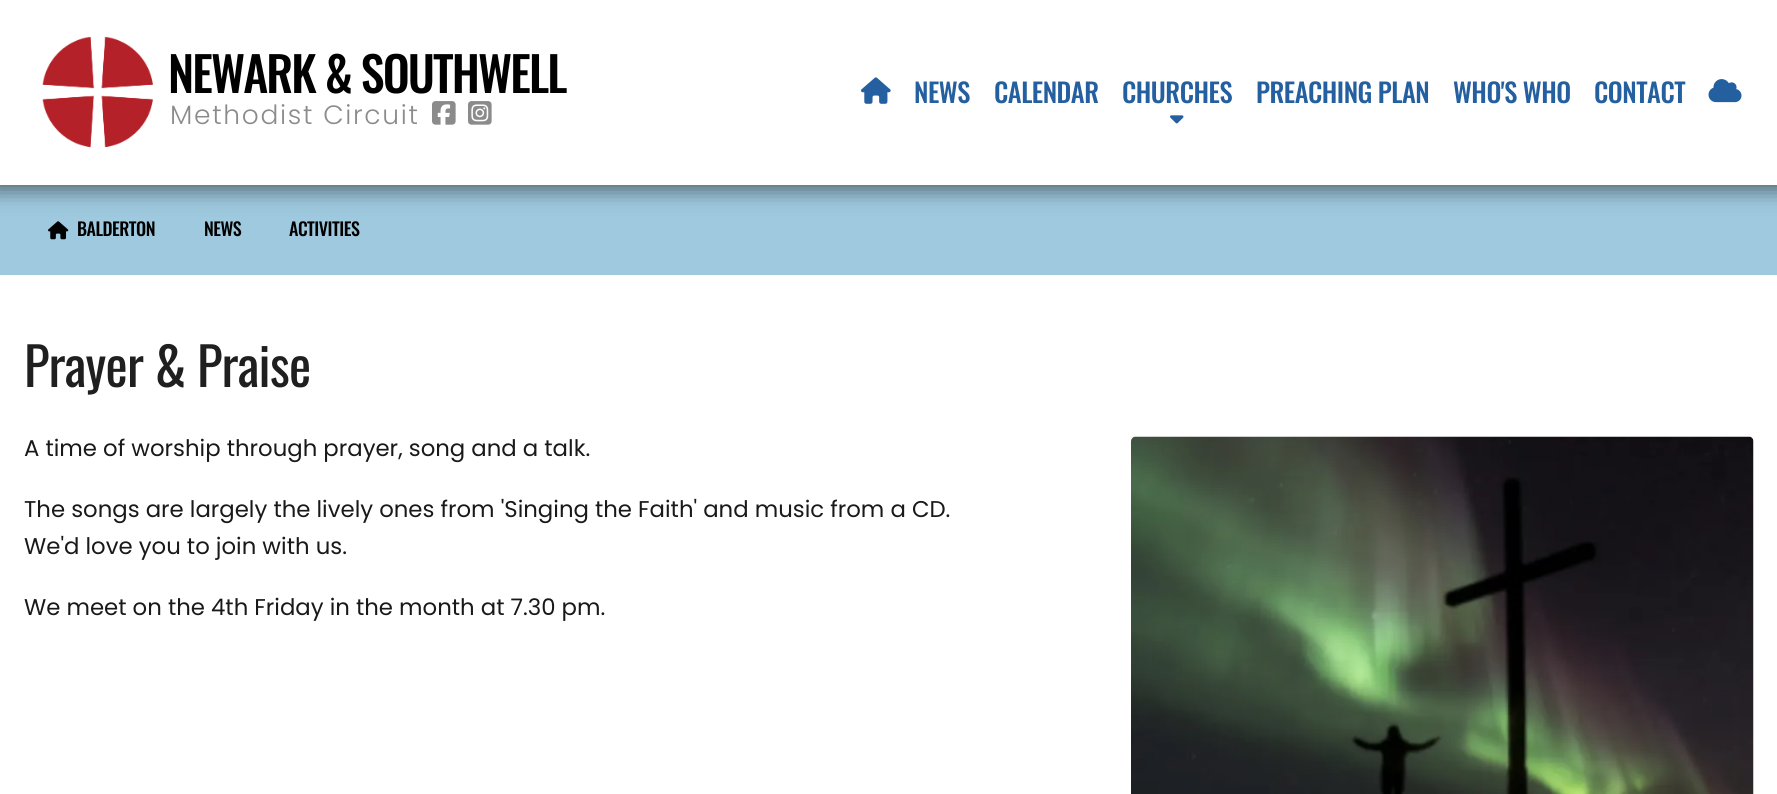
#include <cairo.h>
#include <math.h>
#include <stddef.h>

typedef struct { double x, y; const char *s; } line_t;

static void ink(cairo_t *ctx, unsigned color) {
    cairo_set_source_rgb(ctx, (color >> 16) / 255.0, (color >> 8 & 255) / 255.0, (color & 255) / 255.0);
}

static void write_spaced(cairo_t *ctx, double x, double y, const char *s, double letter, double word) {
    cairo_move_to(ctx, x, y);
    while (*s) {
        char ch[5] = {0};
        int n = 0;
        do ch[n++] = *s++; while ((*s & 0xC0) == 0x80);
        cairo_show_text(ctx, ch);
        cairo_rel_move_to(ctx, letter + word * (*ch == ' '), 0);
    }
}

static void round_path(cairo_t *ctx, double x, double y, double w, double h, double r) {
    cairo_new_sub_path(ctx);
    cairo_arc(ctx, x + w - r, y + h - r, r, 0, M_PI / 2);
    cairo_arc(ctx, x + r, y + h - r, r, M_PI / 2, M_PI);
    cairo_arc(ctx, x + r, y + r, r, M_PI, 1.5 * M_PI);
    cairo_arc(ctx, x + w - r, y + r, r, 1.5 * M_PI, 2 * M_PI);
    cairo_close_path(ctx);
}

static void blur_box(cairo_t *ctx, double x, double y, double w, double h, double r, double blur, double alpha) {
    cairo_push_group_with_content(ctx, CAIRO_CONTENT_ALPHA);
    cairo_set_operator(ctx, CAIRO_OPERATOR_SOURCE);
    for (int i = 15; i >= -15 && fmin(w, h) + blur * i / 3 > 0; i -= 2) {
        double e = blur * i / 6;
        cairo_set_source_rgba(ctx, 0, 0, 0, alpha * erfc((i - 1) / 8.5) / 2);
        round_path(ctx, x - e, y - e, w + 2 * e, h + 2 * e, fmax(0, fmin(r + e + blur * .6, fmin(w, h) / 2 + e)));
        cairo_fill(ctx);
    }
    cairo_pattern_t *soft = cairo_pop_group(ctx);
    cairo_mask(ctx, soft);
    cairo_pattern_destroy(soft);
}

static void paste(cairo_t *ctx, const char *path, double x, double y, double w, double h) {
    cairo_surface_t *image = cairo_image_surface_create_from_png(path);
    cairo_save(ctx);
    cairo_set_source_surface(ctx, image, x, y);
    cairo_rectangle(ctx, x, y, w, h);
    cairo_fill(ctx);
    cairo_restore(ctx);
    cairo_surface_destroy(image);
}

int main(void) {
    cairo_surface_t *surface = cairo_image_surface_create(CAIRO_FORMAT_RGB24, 1777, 794);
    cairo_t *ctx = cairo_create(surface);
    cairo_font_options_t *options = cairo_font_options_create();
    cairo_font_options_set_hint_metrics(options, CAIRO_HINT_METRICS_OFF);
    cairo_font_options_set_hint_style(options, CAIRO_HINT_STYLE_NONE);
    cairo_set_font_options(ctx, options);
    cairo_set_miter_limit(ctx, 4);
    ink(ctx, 0xFFFFFF);
    cairo_paint(ctx);
    ink(ctx, 0x9EC9DE);
    cairo_rectangle(ctx, 0, 185, 1777, 90);
    cairo_fill(ctx);
    paste(ctx, "media/7.png", 48, 221, 21, 19);
    ink(ctx, 0x000000);
    blur_box(ctx, -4, -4, 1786, 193, 0, 11, 0.55);
    ink(ctx, 0xFFFFFF);
    cairo_rectangle(ctx, 0, 0, 1777, 185);
    cairo_fill(ctx);
    paste(ctx, "media/1.png", 42, 36, 112, 112);
    cairo_select_font_face(ctx, "Oswald Medium", CAIRO_FONT_SLANT_NORMAL, CAIRO_FONT_WEIGHT_NORMAL);
    cairo_set_font_size(ctx, 48);
    ink(ctx, 0x000000);
    write_spaced(ctx, 168, 93, "NEWARK & SOUTHWELL", -1.9, 0);
    cairo_select_font_face(ctx, "Poppins Light", CAIRO_FONT_SLANT_NORMAL, CAIRO_FONT_WEIGHT_NORMAL);
    cairo_set_font_size(ctx, 26.5);
    ink(ctx, 0x8B8B8B);
    write_spaced(ctx, 170, 124, "Methodist Circuit", 1.7, 0);
    paste(ctx, "media/2.png", 432, 101, 24, 24);
    paste(ctx, "media/3.png", 468, 101, 24, 24);
    paste(ctx, "media/4.png", 861, 77, 30, 27);
    cairo_select_font_face(ctx, "Oswald Medium", CAIRO_FONT_SLANT_NORMAL, CAIRO_FONT_WEIGHT_NORMAL);
    ink(ctx, 0x245FA0);
    {
        static const line_t items[] = {
            {914, 103, "NEWS"},
            {994, 103, "CALENDAR"},
            {1122, 103, "CHURCHES"},
        };
        for (size_t i = 0; i < sizeof items / sizeof *items; i++) {
            write_spaced(ctx, items[i].x, items[i].y, items[i].s, -0.5, 0);
        }
    }
    paste(ctx, "media/5.png", 1170, 115, 14, 9);
    {
        static const line_t items[] = {
            {1256, 103, "PREACHING PLAN"},
            {1453, 103, "WHO'S WHO"},
            {1594, 103, "CONTACT"},
        };
        for (size_t i = 0; i < sizeof items / sizeof *items; i++) {
            write_spaced(ctx, items[i].x, items[i].y, items[i].s, -0.5, 0);
        }
    }
    paste(ctx, "media/6.png", 1708, 79, 34, 24);
    cairo_set_font_size(ctx, 18);
    ink(ctx, 0x000000);
    {
        static const line_t items[] = {
            {77, 236, "BALDERTON"},
            {204, 236, "NEWS"},
            {289, 236, "ACTIVITIES"},
        };
        for (size_t i = 0; i < sizeof items / sizeof *items; i++) {
            write_spaced(ctx, items[i].x, items[i].y, items[i].s, -0.5, 0);
        }
    }
    cairo_select_font_face(ctx, "Oswald", CAIRO_FONT_SLANT_NORMAL, CAIRO_FONT_WEIGHT_NORMAL);
    cairo_set_font_size(ctx, 52.75);
    ink(ctx, 0x1F1F1F);
    write_spaced(ctx, 24, 387, "Prayer & Praise", -0.75, 0);
    cairo_select_font_face(ctx, "Poppins", CAIRO_FONT_SLANT_NORMAL, CAIRO_FONT_WEIGHT_NORMAL);
    cairo_set_font_size(ctx, 22.8);
    ink(ctx, 0x191919);
    cairo_move_to(ctx, 24, 456);
    cairo_show_text(ctx, "A time of worship through prayer, song and a talk.");
    paste(ctx, "media/8.png", 1131, 436, 623, 358);
    {
        static const line_t items[] = {
            {24, 517, "The songs are largely the lively ones from 'Singing the Faith' and music from a CD."},
            {24, 554, "We'd love you to join with us."},
            {24, 615, "We meet on the 4th Friday in the month at 7.30 pm."},
        };
        for (size_t i = 0; i < sizeof items / sizeof *items; i++) {
            cairo_move_to(ctx, items[i].x, items[i].y);
            cairo_show_text(ctx, items[i].s);
        }
    }
    cairo_surface_write_to_png(surface, "image.png");
    cairo_font_options_destroy(options);
    cairo_destroy(ctx);
    cairo_surface_destroy(surface);
    return 0;
}
